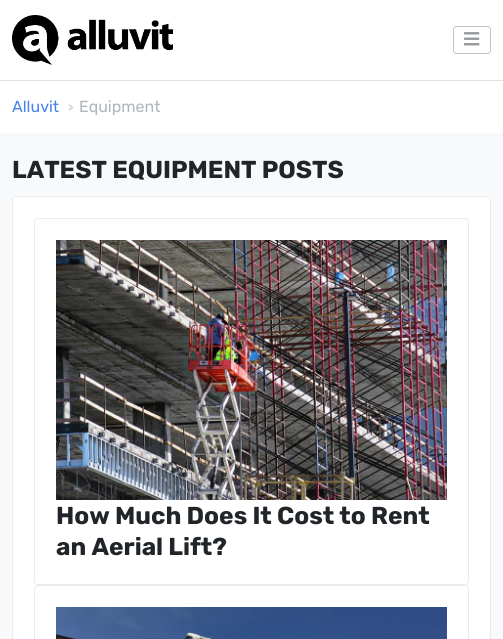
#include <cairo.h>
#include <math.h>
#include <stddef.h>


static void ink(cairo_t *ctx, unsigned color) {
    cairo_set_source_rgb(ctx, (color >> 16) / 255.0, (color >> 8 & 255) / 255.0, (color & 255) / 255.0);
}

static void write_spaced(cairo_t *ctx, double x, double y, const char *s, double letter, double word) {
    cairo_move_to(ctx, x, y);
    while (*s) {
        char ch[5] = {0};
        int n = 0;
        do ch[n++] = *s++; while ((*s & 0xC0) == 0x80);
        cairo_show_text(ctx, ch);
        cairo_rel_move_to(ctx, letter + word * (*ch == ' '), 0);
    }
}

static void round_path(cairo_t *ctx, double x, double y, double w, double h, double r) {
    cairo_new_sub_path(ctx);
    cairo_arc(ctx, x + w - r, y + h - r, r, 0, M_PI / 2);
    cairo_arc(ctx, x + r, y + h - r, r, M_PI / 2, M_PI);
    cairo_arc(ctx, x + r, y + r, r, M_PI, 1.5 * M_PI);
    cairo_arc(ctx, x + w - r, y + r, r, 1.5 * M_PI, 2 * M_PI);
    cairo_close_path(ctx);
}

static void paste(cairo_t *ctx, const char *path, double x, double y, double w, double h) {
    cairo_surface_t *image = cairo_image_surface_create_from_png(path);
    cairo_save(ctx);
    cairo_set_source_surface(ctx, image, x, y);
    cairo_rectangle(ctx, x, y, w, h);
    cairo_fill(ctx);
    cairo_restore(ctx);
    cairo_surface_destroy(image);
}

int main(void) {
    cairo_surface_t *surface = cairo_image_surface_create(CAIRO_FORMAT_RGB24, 503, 639);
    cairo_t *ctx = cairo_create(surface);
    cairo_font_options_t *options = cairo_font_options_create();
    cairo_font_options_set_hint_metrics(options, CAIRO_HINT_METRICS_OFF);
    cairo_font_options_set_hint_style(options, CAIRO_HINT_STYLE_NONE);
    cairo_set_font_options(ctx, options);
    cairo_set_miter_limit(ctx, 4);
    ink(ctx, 0xF8F9FA);
    cairo_paint(ctx);
    ink(ctx, 0xDEE2E6);
    cairo_rectangle(ctx, 0, 80, 503, 1);
    cairo_fill(ctx);
    ink(ctx, 0xFFFFFF);
    cairo_rectangle(ctx, 0, 0, 503, 80);
    cairo_fill(ctx);
    paste(ctx, "media/1.png", 12, 15, 161, 50);
    round_path(ctx, 453.5, 26.5, 37, 27, 3.5);
    ink(ctx, 0xC2C4C6);
    cairo_set_line_width(ctx, 1);
    cairo_stroke(ctx);
    paste(ctx, "media/2.png", 464, 32, 16, 14);
    ink(ctx, 0xFFFFFF);
    cairo_rectangle(ctx, 0, 81, 503, 52);
    cairo_fill(ctx);
    cairo_select_font_face(ctx, "Rubik", CAIRO_FONT_SLANT_NORMAL, CAIRO_FONT_WEIGHT_NORMAL);
    cairo_set_font_size(ctx, 16);
    ink(ctx, 0x4582EC);
    cairo_move_to(ctx, 12, 112);
    cairo_show_text(ctx, "Alluvit");
    cairo_select_font_face(ctx, "Rubik", CAIRO_FONT_SLANT_NORMAL, CAIRO_FONT_WEIGHT_BOLD);
    cairo_set_font_size(ctx, 11);
    ink(ctx, 0xCED4DA);
    write_spaced(ctx, 68, 111, ">", -2, 0);
    cairo_select_font_face(ctx, "Rubik", CAIRO_FONT_SLANT_NORMAL, CAIRO_FONT_WEIGHT_NORMAL);
    cairo_set_font_size(ctx, 16);
    ink(ctx, 0xADB5BD);
    cairo_move_to(ctx, 79, 112);
    cairo_show_text(ctx, "Equipment");
    cairo_select_font_face(ctx, "Rubik", CAIRO_FONT_SLANT_NORMAL, CAIRO_FONT_WEIGHT_BOLD);
    cairo_set_font_size(ctx, 24.5);
    ink(ctx, 0x212529);
    cairo_move_to(ctx, 12, 178);
    cairo_show_text(ctx, "LATEST EQUIPMENT POSTS");
    ink(ctx, 0xFFFFFF);
    round_path(ctx, 12.5, 196.5, 478, 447, 3.5);
    cairo_fill_preserve(ctx);
    ink(ctx, 0xE9ECEF);
    cairo_stroke(ctx);
    round_path(ctx, 34.5, 218.5, 434, 366, 3.5);
    cairo_stroke(ctx);
    paste(ctx, "media/3.png", 56, 240, 391, 260);
    ink(ctx, 0x212529);
    cairo_move_to(ctx, 56, 524);
    cairo_show_text(ctx, "How Much Does It Cost to Rent");
    cairo_move_to(ctx, 56, 555);
    cairo_show_text(ctx, "an Aerial Lift?");
    round_path(ctx, 34.5, 585.5, 434, 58, 3.5);
    ink(ctx, 0xE9ECEF);
    cairo_stroke(ctx);
    paste(ctx, "media/4.png", 56, 607, 391, 32);
    cairo_surface_write_to_png(surface, "image.png");
    cairo_font_options_destroy(options);
    cairo_destroy(ctx);
    cairo_surface_destroy(surface);
    return 0;
}
